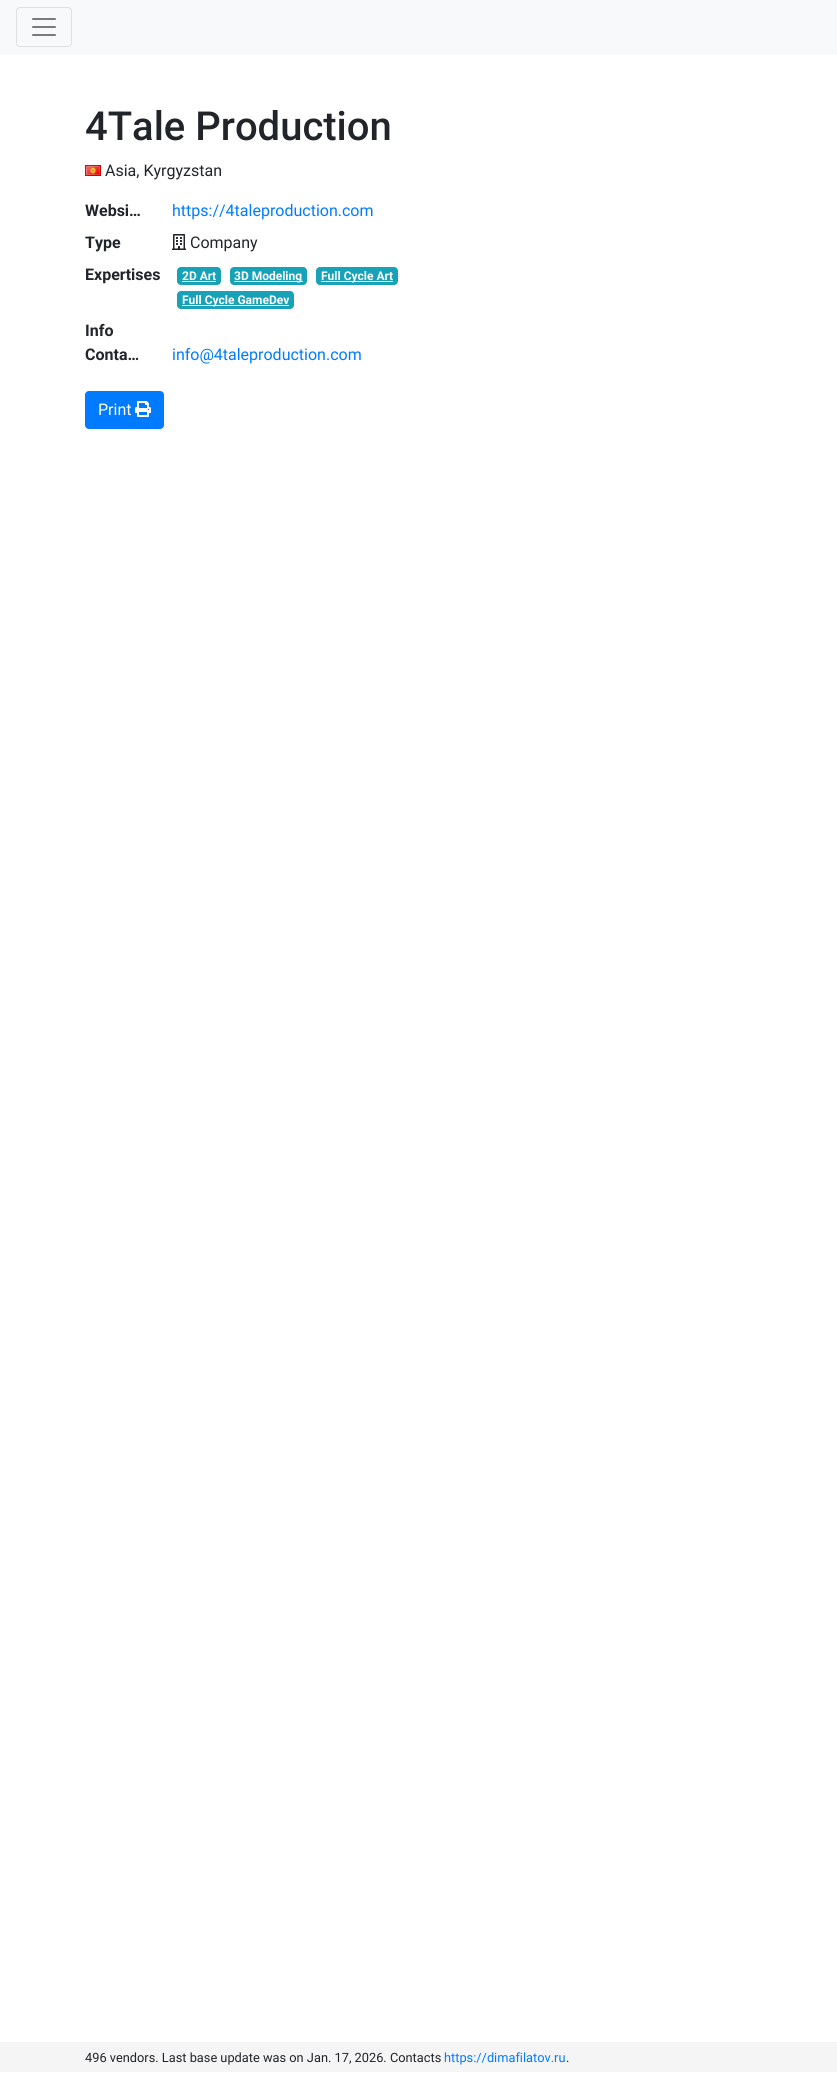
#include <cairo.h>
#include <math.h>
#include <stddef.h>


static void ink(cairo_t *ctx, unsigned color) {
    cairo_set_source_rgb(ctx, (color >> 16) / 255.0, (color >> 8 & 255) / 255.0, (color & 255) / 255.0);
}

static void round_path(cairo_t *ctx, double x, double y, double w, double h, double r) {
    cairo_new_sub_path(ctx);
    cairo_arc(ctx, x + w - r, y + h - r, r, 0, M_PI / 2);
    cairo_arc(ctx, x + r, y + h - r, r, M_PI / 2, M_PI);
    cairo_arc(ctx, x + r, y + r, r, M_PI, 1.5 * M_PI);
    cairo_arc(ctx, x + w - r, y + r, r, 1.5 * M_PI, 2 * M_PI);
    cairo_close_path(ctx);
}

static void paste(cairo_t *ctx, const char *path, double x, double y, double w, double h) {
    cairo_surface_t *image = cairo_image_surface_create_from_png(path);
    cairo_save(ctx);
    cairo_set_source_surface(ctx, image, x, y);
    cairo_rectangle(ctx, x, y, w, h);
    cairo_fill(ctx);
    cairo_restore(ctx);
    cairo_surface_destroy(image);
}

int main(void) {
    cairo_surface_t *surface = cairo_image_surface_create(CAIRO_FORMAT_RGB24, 837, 2073);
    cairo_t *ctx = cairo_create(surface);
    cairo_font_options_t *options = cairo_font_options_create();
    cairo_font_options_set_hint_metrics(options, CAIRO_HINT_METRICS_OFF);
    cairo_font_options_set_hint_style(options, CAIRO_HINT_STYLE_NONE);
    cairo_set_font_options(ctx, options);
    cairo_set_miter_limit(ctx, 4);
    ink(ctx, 0xFFFFFF);
    cairo_paint(ctx);
    ink(ctx, 0xF8F9FA);
    cairo_rectangle(ctx, 0, 0, 837, 55);
    cairo_fill(ctx);
    round_path(ctx, 16.5, 7.5, 55, 39, 3.5);
    ink(ctx, 0xDFE0E1);
    cairo_set_line_width(ctx, 1);
    cairo_stroke(ctx);
    paste(ctx, "media/1.png", 32, 18, 24, 18);
    cairo_select_font_face(ctx, "Roboto Medium", CAIRO_FONT_SLANT_NORMAL, CAIRO_FONT_WEIGHT_NORMAL);
    cairo_set_font_size(ctx, 40);
    ink(ctx, 0x212529);
    cairo_move_to(ctx, 85, 140);
    cairo_show_text(ctx, "4Tale Production");
    paste(ctx, "media/2.png", 85, 165, 16, 11);
    cairo_select_font_face(ctx, "Roboto", CAIRO_FONT_SLANT_NORMAL, CAIRO_FONT_WEIGHT_NORMAL);
    cairo_set_font_size(ctx, 16);
    cairo_move_to(ctx, 105, 176);
    cairo_show_text(ctx, "Asia, Kyrgyzstan");
    cairo_select_font_face(ctx, "Roboto", CAIRO_FONT_SLANT_NORMAL, CAIRO_FONT_WEIGHT_BOLD);
    cairo_move_to(ctx, 85, 216);
    cairo_show_text(ctx, "Websi…");
    cairo_select_font_face(ctx, "Roboto", CAIRO_FONT_SLANT_NORMAL, CAIRO_FONT_WEIGHT_NORMAL);
    ink(ctx, 0x007BFF);
    cairo_move_to(ctx, 172, 216);
    cairo_show_text(ctx, "https://4taleproduction.com");
    cairo_select_font_face(ctx, "Roboto", CAIRO_FONT_SLANT_NORMAL, CAIRO_FONT_WEIGHT_BOLD);
    ink(ctx, 0x212529);
    cairo_move_to(ctx, 85, 248);
    cairo_show_text(ctx, "Type");
    paste(ctx, "media/3.png", 172, 234, 14, 16);
    cairo_select_font_face(ctx, "Roboto", CAIRO_FONT_SLANT_NORMAL, CAIRO_FONT_WEIGHT_NORMAL);
    cairo_move_to(ctx, 190, 248);
    cairo_show_text(ctx, "Company");
    cairo_select_font_face(ctx, "Roboto", CAIRO_FONT_SLANT_NORMAL, CAIRO_FONT_WEIGHT_BOLD);
    cairo_move_to(ctx, 85, 280);
    cairo_show_text(ctx, "Expertises");
    ink(ctx, 0x17A2B8);
    round_path(ctx, 177, 267, 44, 18, 4);
    cairo_fill(ctx);
    cairo_set_font_size(ctx, 12);
    ink(ctx, 0xFFFFFF);
    cairo_move_to(ctx, 182, 280);
    cairo_show_text(ctx, "2D Art");
    cairo_rectangle(ctx, 182, 281, 34, 1);
    cairo_fill(ctx);
    ink(ctx, 0x17A2B8);
    round_path(ctx, 230, 267, 77, 18, 4);
    cairo_fill(ctx);
    ink(ctx, 0xFFFFFF);
    cairo_rectangle(ctx, 234, 281, 69, 1);
    cairo_fill(ctx);
    cairo_move_to(ctx, 234, 280);
    cairo_show_text(ctx, "3D Modeling");
    ink(ctx, 0x17A2B8);
    round_path(ctx, 316, 267, 82, 18, 4);
    cairo_fill(ctx);
    ink(ctx, 0xFFFFFF);
    cairo_rectangle(ctx, 321, 281, 72, 1);
    cairo_fill(ctx);
    cairo_move_to(ctx, 321, 280);
    cairo_show_text(ctx, "Full Cycle Art");
    ink(ctx, 0x17A2B8);
    round_path(ctx, 177, 291, 117, 18, 4);
    cairo_fill(ctx);
    ink(ctx, 0xFFFFFF);
    cairo_rectangle(ctx, 182, 305, 107, 1);
    cairo_fill(ctx);
    cairo_move_to(ctx, 182, 304);
    cairo_show_text(ctx, "Full Cycle GameDev");
    cairo_set_font_size(ctx, 16);
    ink(ctx, 0x212529);
    cairo_move_to(ctx, 85, 336);
    cairo_show_text(ctx, "Info");
    cairo_move_to(ctx, 85, 360);
    cairo_show_text(ctx, "Conta…");
    cairo_select_font_face(ctx, "Roboto", CAIRO_FONT_SLANT_NORMAL, CAIRO_FONT_WEIGHT_NORMAL);
    ink(ctx, 0x007BFF);
    cairo_move_to(ctx, 172, 360);
    cairo_show_text(ctx, "info@4taleproduction.com");
    round_path(ctx, 85.5, 391.5, 78, 37, 3.5);
    cairo_fill_preserve(ctx);
    cairo_stroke(ctx);
    ink(ctx, 0xFFFFFF);
    cairo_move_to(ctx, 98, 415);
    cairo_show_text(ctx, "Print");
    paste(ctx, "media/4.png", 135, 401, 16, 16);
    ink(ctx, 0xF5F5F5);
    cairo_rectangle(ctx, 0, 2042, 837, 30);
    cairo_fill(ctx);
    cairo_set_font_size(ctx, 12.8);
    ink(ctx, 0x212529);
    cairo_move_to(ctx, 85, 2062);
    cairo_show_text(ctx, "496 vendors. Last base update was on Jan. 17, 2026. Contacts");
    ink(ctx, 0x007BFF);
    cairo_move_to(ctx, 444, 2062);
    cairo_show_text(ctx, "https://dimafilatov.ru");
    ink(ctx, 0x212529);
    cairo_move_to(ctx, 566, 2062);
    cairo_show_text(ctx, ".");
    cairo_surface_write_to_png(surface, "image.png");
    cairo_font_options_destroy(options);
    cairo_destroy(ctx);
    cairo_surface_destroy(surface);
    return 0;
}
